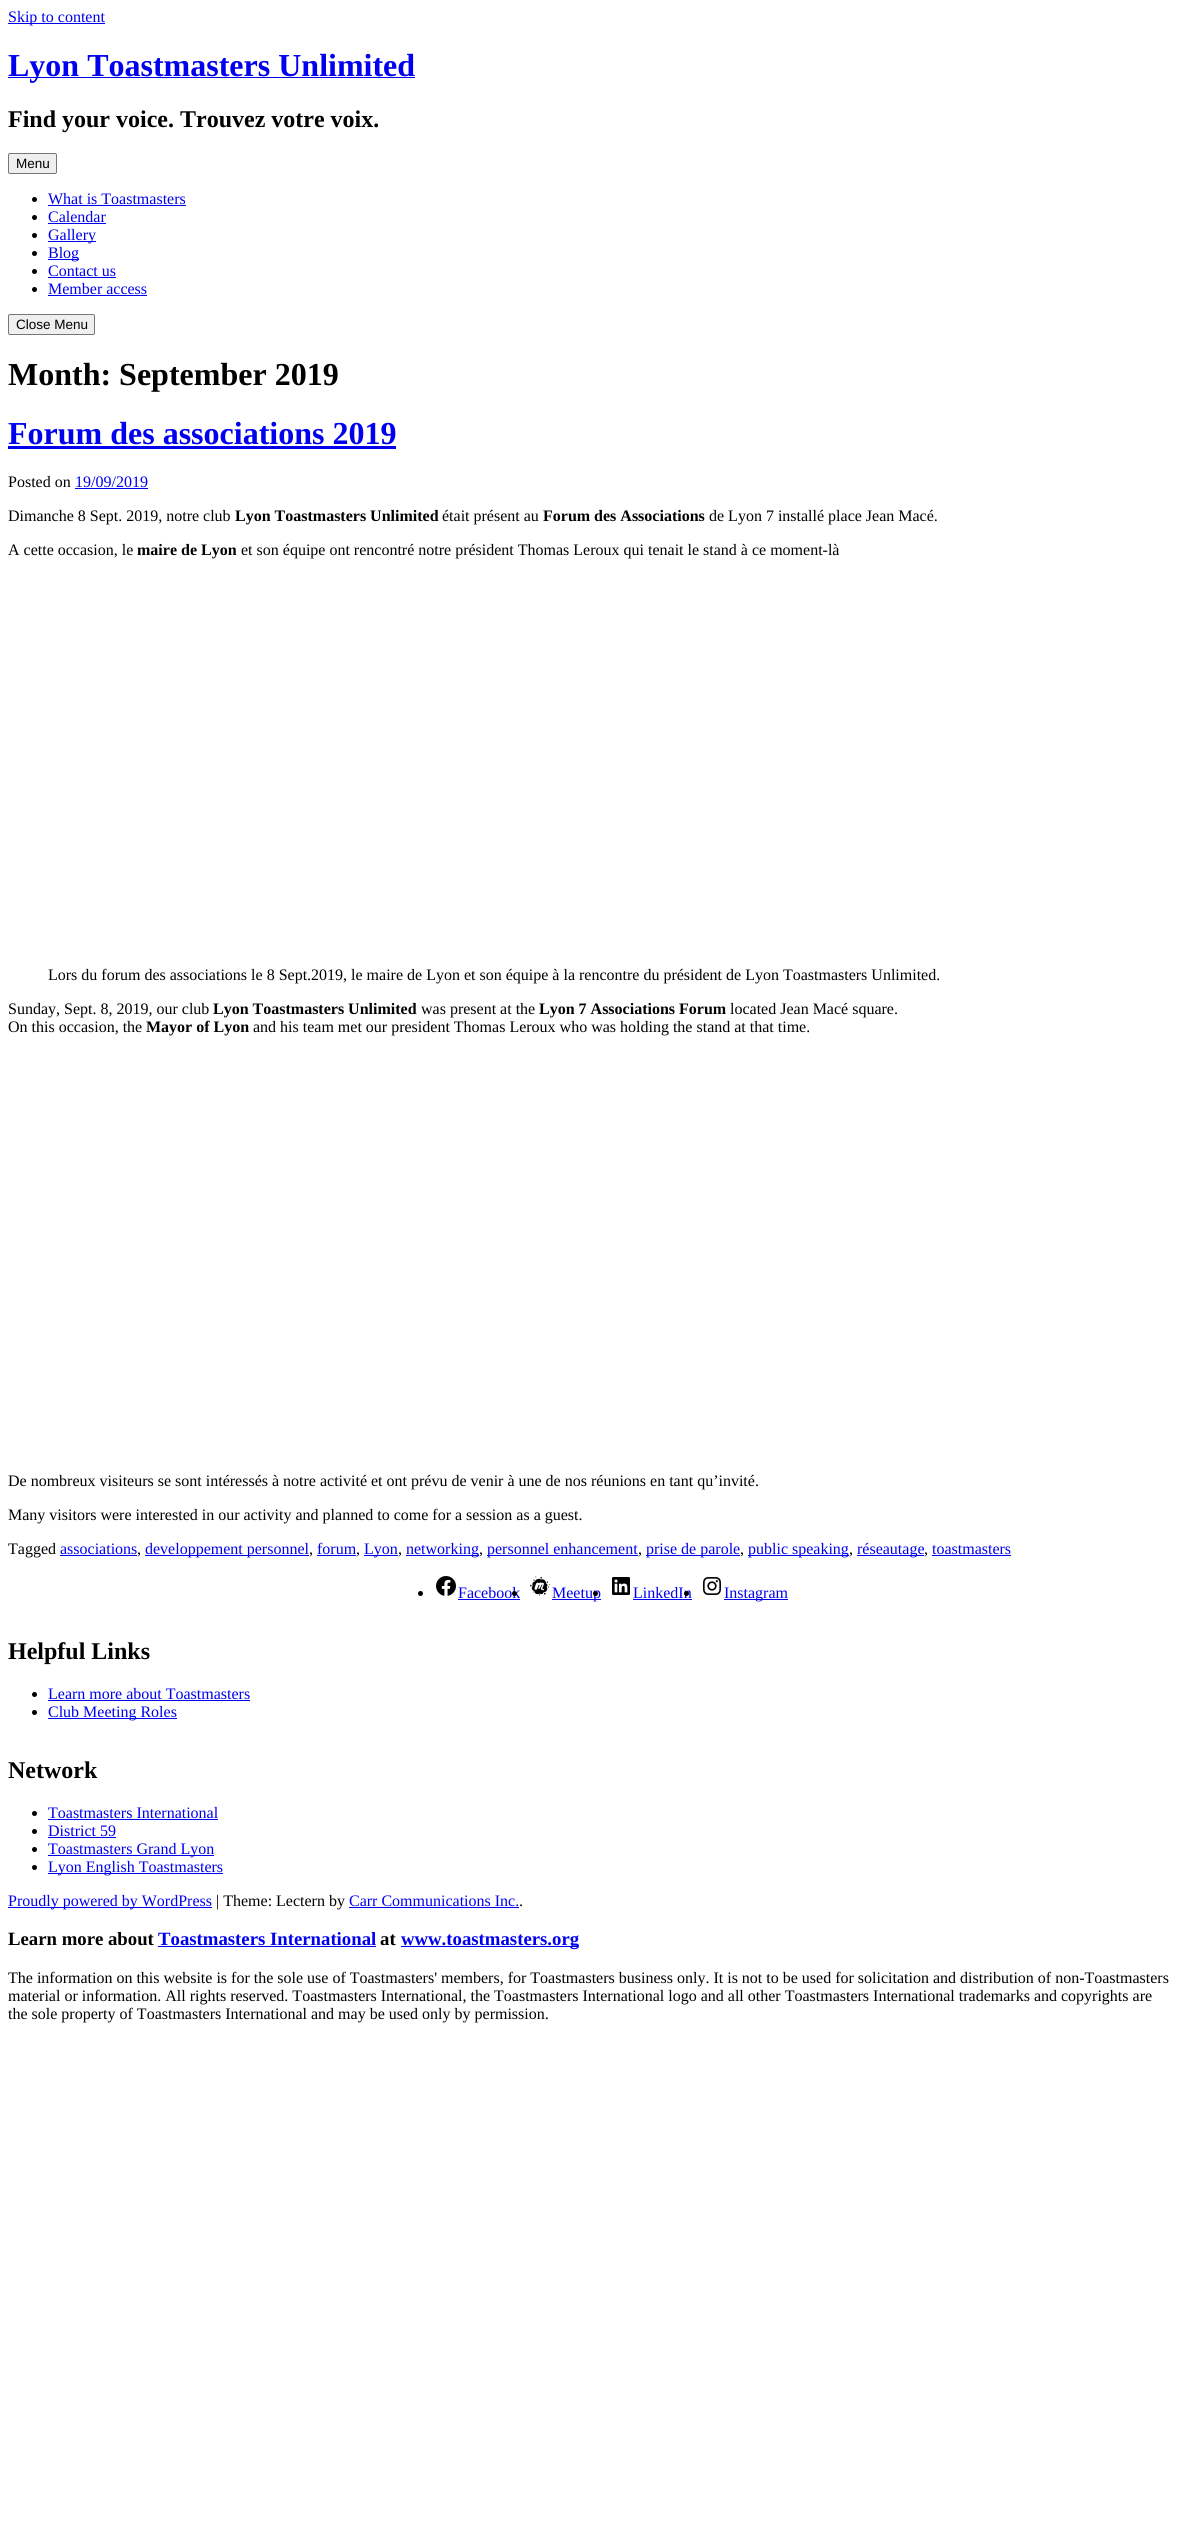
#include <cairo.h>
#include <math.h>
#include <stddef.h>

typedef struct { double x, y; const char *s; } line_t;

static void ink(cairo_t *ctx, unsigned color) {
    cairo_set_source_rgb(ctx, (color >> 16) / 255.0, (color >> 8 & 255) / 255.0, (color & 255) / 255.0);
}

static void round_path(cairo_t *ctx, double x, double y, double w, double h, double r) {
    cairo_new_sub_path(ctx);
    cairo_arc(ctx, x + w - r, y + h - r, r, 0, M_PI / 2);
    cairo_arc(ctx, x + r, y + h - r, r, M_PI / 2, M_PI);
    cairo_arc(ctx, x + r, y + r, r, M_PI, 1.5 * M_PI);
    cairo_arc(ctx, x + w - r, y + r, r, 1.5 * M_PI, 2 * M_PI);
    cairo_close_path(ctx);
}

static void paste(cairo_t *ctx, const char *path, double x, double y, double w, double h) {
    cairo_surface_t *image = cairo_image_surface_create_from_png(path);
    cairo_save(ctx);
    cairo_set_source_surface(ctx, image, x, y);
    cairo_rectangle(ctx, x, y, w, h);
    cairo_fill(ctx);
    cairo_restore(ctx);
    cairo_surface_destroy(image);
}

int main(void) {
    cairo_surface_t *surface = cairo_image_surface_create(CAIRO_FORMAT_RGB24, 1182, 2538);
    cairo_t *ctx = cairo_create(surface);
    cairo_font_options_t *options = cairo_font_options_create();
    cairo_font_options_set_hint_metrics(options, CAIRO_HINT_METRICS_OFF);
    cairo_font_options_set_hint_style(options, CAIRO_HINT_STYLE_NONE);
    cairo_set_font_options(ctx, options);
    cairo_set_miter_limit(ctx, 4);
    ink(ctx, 0xFFFFFF);
    cairo_paint(ctx);
    ink(ctx, 0x0000EE);
    cairo_rectangle(ctx, 8, 23, 97, 1);
    cairo_fill(ctx);
    cairo_select_font_face(ctx, "Liberation Serif", CAIRO_FONT_SLANT_NORMAL, CAIRO_FONT_WEIGHT_NORMAL);
    cairo_set_font_size(ctx, 16);
    cairo_move_to(ctx, 8, 22);
    cairo_show_text(ctx, "Skip to content");
    cairo_rectangle(ctx, 8, 77, 407, 1);
    cairo_fill(ctx);
    cairo_select_font_face(ctx, "Liberation Serif", CAIRO_FONT_SLANT_NORMAL, CAIRO_FONT_WEIGHT_BOLD);
    cairo_set_font_size(ctx, 32);
    cairo_move_to(ctx, 8, 76);
    cairo_show_text(ctx, "Lyon Toastmasters Unlimited");
    cairo_set_font_size(ctx, 24);
    ink(ctx, 0x000000);
    cairo_move_to(ctx, 8, 127);
    cairo_show_text(ctx, "Find your voice. Trouvez votre voix.");
    ink(ctx, 0xEFEFEF);
    round_path(ctx, 8.5, 153.5, 48, 20, 1.5);
    cairo_fill_preserve(ctx);
    ink(ctx, 0x767676);
    cairo_set_line_width(ctx, 1);
    cairo_stroke(ctx);
    cairo_select_font_face(ctx, "Liberation Sans", CAIRO_FONT_SLANT_NORMAL, CAIRO_FONT_WEIGHT_NORMAL);
    cairo_set_font_size(ctx, 13.5);
    ink(ctx, 0x000000);
    cairo_move_to(ctx, 16, 168);
    cairo_show_text(ctx, "Menu");
    cairo_new_path(ctx);
    cairo_arc(ctx, 34.5, 199.5, 2.5, 0, 2 * M_PI);
    cairo_fill(ctx);
    cairo_select_font_face(ctx, "Liberation Serif", CAIRO_FONT_SLANT_NORMAL, CAIRO_FONT_WEIGHT_NORMAL);
    cairo_set_font_size(ctx, 16);
    ink(ctx, 0x0000EE);
    cairo_move_to(ctx, 48, 204);
    cairo_show_text(ctx, "What is Toastmasters");
    cairo_rectangle(ctx, 48, 205, 138, 1);
    cairo_fill(ctx);
    ink(ctx, 0x000000);
    cairo_arc(ctx, 34.5, 217.5, 2.5, 0, 2 * M_PI);
    cairo_fill(ctx);
    ink(ctx, 0x0000EE);
    cairo_move_to(ctx, 48, 222);
    cairo_show_text(ctx, "Calendar");
    cairo_rectangle(ctx, 48, 223, 58, 1);
    cairo_fill(ctx);
    ink(ctx, 0x000000);
    cairo_arc(ctx, 34.5, 235.5, 2.5, 0, 2 * M_PI);
    cairo_fill(ctx);
    ink(ctx, 0x0000EE);
    cairo_rectangle(ctx, 48, 241, 48, 1);
    cairo_fill(ctx);
    cairo_move_to(ctx, 48, 240);
    cairo_show_text(ctx, "Gallery");
    ink(ctx, 0x000000);
    cairo_new_path(ctx);
    cairo_arc(ctx, 34.5, 253.5, 2.5, 0, 2 * M_PI);
    cairo_fill(ctx);
    ink(ctx, 0x0000EE);
    cairo_rectangle(ctx, 48, 259, 31, 1);
    cairo_fill(ctx);
    cairo_move_to(ctx, 48, 258);
    cairo_show_text(ctx, "Blog");
    ink(ctx, 0x000000);
    cairo_new_path(ctx);
    cairo_arc(ctx, 34.5, 271.5, 2.5, 0, 2 * M_PI);
    cairo_fill(ctx);
    ink(ctx, 0x0000EE);
    cairo_move_to(ctx, 48, 276);
    cairo_show_text(ctx, "Contact us");
    cairo_rectangle(ctx, 48, 277, 68, 1);
    cairo_fill(ctx);
    ink(ctx, 0x000000);
    cairo_arc(ctx, 34.5, 289.5, 2.5, 0, 2 * M_PI);
    cairo_fill(ctx);
    ink(ctx, 0x0000EE);
    cairo_move_to(ctx, 48, 294);
    cairo_show_text(ctx, "Member access");
    cairo_rectangle(ctx, 48, 295, 99, 1);
    cairo_fill(ctx);
    ink(ctx, 0xEFEFEF);
    round_path(ctx, 8.5, 314.5, 86, 20, 1.5);
    cairo_fill_preserve(ctx);
    ink(ctx, 0x767676);
    cairo_stroke(ctx);
    cairo_select_font_face(ctx, "Liberation Sans", CAIRO_FONT_SLANT_NORMAL, CAIRO_FONT_WEIGHT_NORMAL);
    cairo_set_font_size(ctx, 13.5);
    ink(ctx, 0x000000);
    cairo_move_to(ctx, 16, 329);
    cairo_show_text(ctx, "Close Menu");
    cairo_select_font_face(ctx, "Liberation Serif", CAIRO_FONT_SLANT_NORMAL, CAIRO_FONT_WEIGHT_BOLD);
    cairo_set_font_size(ctx, 32);
    cairo_move_to(ctx, 8, 385);
    cairo_show_text(ctx, "Month: September 2019");
    ink(ctx, 0x0000EE);
    cairo_move_to(ctx, 8, 444);
    cairo_show_text(ctx, "Forum des associations 2019");
    cairo_rectangle(ctx, 8, 446, 388, 3);
    cairo_fill(ctx);
    cairo_select_font_face(ctx, "Liberation Serif", CAIRO_FONT_SLANT_NORMAL, CAIRO_FONT_WEIGHT_NORMAL);
    cairo_set_font_size(ctx, 16);
    ink(ctx, 0x000000);
    cairo_move_to(ctx, 8, 487);
    cairo_show_text(ctx, "Posted on");
    ink(ctx, 0x0000EE);
    cairo_move_to(ctx, 75, 487);
    cairo_show_text(ctx, "19/09/2019");
    cairo_rectangle(ctx, 75, 488, 73, 1);
    cairo_fill(ctx);
    ink(ctx, 0x000000);
    cairo_move_to(ctx, 8, 521);
    cairo_show_text(ctx, "Dimanche 8 Sept. 2019, notre club");
    cairo_select_font_face(ctx, "Liberation Serif", CAIRO_FONT_SLANT_NORMAL, CAIRO_FONT_WEIGHT_BOLD);
    cairo_move_to(ctx, 235, 521);
    cairo_show_text(ctx, "Lyon Toastmasters Unlimited");
    cairo_select_font_face(ctx, "Liberation Serif", CAIRO_FONT_SLANT_NORMAL, CAIRO_FONT_WEIGHT_NORMAL);
    cairo_move_to(ctx, 442, 521);
    cairo_show_text(ctx, "était présent au");
    cairo_select_font_face(ctx, "Liberation Serif", CAIRO_FONT_SLANT_NORMAL, CAIRO_FONT_WEIGHT_BOLD);
    cairo_move_to(ctx, 543, 521);
    cairo_show_text(ctx, "Forum des Associations");
    cairo_select_font_face(ctx, "Liberation Serif", CAIRO_FONT_SLANT_NORMAL, CAIRO_FONT_WEIGHT_NORMAL);
    cairo_move_to(ctx, 709, 521);
    cairo_show_text(ctx, "de Lyon 7 installé place Jean Macé.");
    cairo_move_to(ctx, 8, 555);
    cairo_show_text(ctx, "A cette occasion, le");
    cairo_select_font_face(ctx, "Liberation Serif", CAIRO_FONT_SLANT_NORMAL, CAIRO_FONT_WEIGHT_BOLD);
    cairo_move_to(ctx, 137, 555);
    cairo_show_text(ctx, "maire de Lyon");
    cairo_select_font_face(ctx, "Liberation Serif", CAIRO_FONT_SLANT_NORMAL, CAIRO_FONT_WEIGHT_NORMAL);
    {
        static const line_t items[] = {
            {241, 555, "et son équipe ont rencontré notre président Thomas Leroux qui tenait le stand à ce moment-là"},
            {48, 980, "Lors du forum des associations le 8 Sept.2019, le maire de Lyon et son équipe à la rencontre du président de Lyon Toastmasters Unlimited."},
            {8, 1014, "Sunday, Sept. 8, 2019, our club"},
        };
        for (size_t i = 0; i < sizeof items / sizeof *items; i++) {
            cairo_move_to(ctx, items[i].x, items[i].y);
            cairo_show_text(ctx, items[i].s);
        }
    }
    cairo_select_font_face(ctx, "Liberation Serif", CAIRO_FONT_SLANT_NORMAL, CAIRO_FONT_WEIGHT_BOLD);
    cairo_move_to(ctx, 213, 1014);
    cairo_show_text(ctx, "Lyon Toastmasters Unlimited");
    cairo_select_font_face(ctx, "Liberation Serif", CAIRO_FONT_SLANT_NORMAL, CAIRO_FONT_WEIGHT_NORMAL);
    cairo_move_to(ctx, 421, 1014);
    cairo_show_text(ctx, "was present at the");
    cairo_select_font_face(ctx, "Liberation Serif", CAIRO_FONT_SLANT_NORMAL, CAIRO_FONT_WEIGHT_BOLD);
    cairo_move_to(ctx, 539, 1014);
    cairo_show_text(ctx, "Lyon 7 Associations Forum");
    cairo_select_font_face(ctx, "Liberation Serif", CAIRO_FONT_SLANT_NORMAL, CAIRO_FONT_WEIGHT_NORMAL);
    cairo_move_to(ctx, 730, 1014);
    cairo_show_text(ctx, "located Jean Macé square.");
    cairo_move_to(ctx, 8, 1032);
    cairo_show_text(ctx, "On this occasion, the");
    cairo_select_font_face(ctx, "Liberation Serif", CAIRO_FONT_SLANT_NORMAL, CAIRO_FONT_WEIGHT_BOLD);
    cairo_move_to(ctx, 146, 1032);
    cairo_show_text(ctx, "Mayor of Lyon");
    cairo_select_font_face(ctx, "Liberation Serif", CAIRO_FONT_SLANT_NORMAL, CAIRO_FONT_WEIGHT_NORMAL);
    {
        static const line_t items[] = {
            {253, 1032, "and his team met our president Thomas Leroux who was holding the stand at that time."},
            {8, 1486, "De nombreux visiteurs se sont intéressés à notre activité et ont prévu de venir à une de nos réunions en tant qu’invité."},
            {8, 1520, "Many visitors were interested in our activity and planned to come for a session as a guest."},
            {8, 1554, "Tagged"},
        };
        for (size_t i = 0; i < sizeof items / sizeof *items; i++) {
            cairo_move_to(ctx, items[i].x, items[i].y);
            cairo_show_text(ctx, items[i].s);
        }
    }
    ink(ctx, 0x0000EE);
    cairo_move_to(ctx, 60, 1554);
    cairo_show_text(ctx, "associations");
    ink(ctx, 0x000000);
    cairo_move_to(ctx, 137, 1554);
    cairo_show_text(ctx, ",");
    ink(ctx, 0x0000EE);
    cairo_rectangle(ctx, 60, 1555, 77, 1);
    cairo_fill(ctx);
    cairo_rectangle(ctx, 145, 1555, 164, 1);
    cairo_fill(ctx);
    cairo_move_to(ctx, 145, 1554);
    cairo_show_text(ctx, "developpement personnel");
    ink(ctx, 0x000000);
    cairo_move_to(ctx, 309, 1554);
    cairo_show_text(ctx, ",");
    ink(ctx, 0x0000EE);
    cairo_move_to(ctx, 317, 1554);
    cairo_show_text(ctx, "forum");
    ink(ctx, 0x000000);
    cairo_move_to(ctx, 356, 1554);
    cairo_show_text(ctx, ",");
    ink(ctx, 0x0000EE);
    cairo_rectangle(ctx, 317, 1555, 39, 1);
    cairo_fill(ctx);
    cairo_rectangle(ctx, 364, 1555, 34, 1);
    cairo_fill(ctx);
    cairo_move_to(ctx, 364, 1554);
    cairo_show_text(ctx, "Lyon");
    ink(ctx, 0x000000);
    cairo_move_to(ctx, 398, 1554);
    cairo_show_text(ctx, ",");
    ink(ctx, 0x0000EE);
    cairo_rectangle(ctx, 406, 1555, 73, 1);
    cairo_fill(ctx);
    cairo_move_to(ctx, 406, 1554);
    cairo_show_text(ctx, "networking");
    ink(ctx, 0x000000);
    cairo_move_to(ctx, 479, 1554);
    cairo_show_text(ctx, ",");
    ink(ctx, 0x0000EE);
    cairo_rectangle(ctx, 487, 1555, 151, 1);
    cairo_fill(ctx);
    cairo_move_to(ctx, 487, 1554);
    cairo_show_text(ctx, "personnel enhancement");
    ink(ctx, 0x000000);
    cairo_move_to(ctx, 638, 1554);
    cairo_show_text(ctx, ",");
    ink(ctx, 0x0000EE);
    cairo_rectangle(ctx, 646, 1555, 94, 1);
    cairo_fill(ctx);
    cairo_move_to(ctx, 646, 1554);
    cairo_show_text(ctx, "prise de parole");
    ink(ctx, 0x000000);
    cairo_move_to(ctx, 740, 1554);
    cairo_show_text(ctx, ",");
    ink(ctx, 0x0000EE);
    cairo_rectangle(ctx, 748, 1555, 101, 1);
    cairo_fill(ctx);
    cairo_move_to(ctx, 748, 1554);
    cairo_show_text(ctx, "public speaking");
    ink(ctx, 0x000000);
    cairo_move_to(ctx, 849, 1554);
    cairo_show_text(ctx, ",");
    ink(ctx, 0x0000EE);
    cairo_rectangle(ctx, 857, 1555, 67, 1);
    cairo_fill(ctx);
    cairo_move_to(ctx, 857, 1554);
    cairo_show_text(ctx, "réseautage");
    ink(ctx, 0x000000);
    cairo_move_to(ctx, 924, 1554);
    cairo_show_text(ctx, ",");
    ink(ctx, 0x0000EE);
    cairo_rectangle(ctx, 932, 1555, 79, 1);
    cairo_fill(ctx);
    cairo_move_to(ctx, 932, 1554);
    cairo_show_text(ctx, "toastmasters");
    ink(ctx, 0x000000);
    cairo_new_path(ctx);
    cairo_arc(ctx, 420.5, 1593.5, 2.5, 0, 2 * M_PI);
    cairo_fill(ctx);
    paste(ctx, "media/1.png", 436, 1576, 20, 20);
    ink(ctx, 0x0000EE);
    cairo_move_to(ctx, 458, 1598);
    cairo_show_text(ctx, "Facebook");
    cairo_rectangle(ctx, 458, 1599, 62, 1);
    cairo_fill(ctx);
    ink(ctx, 0x000000);
    cairo_arc(ctx, 514.5, 1593.5, 2.5, 0, 2 * M_PI);
    cairo_fill(ctx);
    paste(ctx, "media/2.png", 530, 1576, 20, 20);
    ink(ctx, 0x0000EE);
    cairo_rectangle(ctx, 552, 1599, 49, 1);
    cairo_fill(ctx);
    cairo_move_to(ctx, 552, 1598);
    cairo_show_text(ctx, "Meetup");
    ink(ctx, 0x000000);
    cairo_new_path(ctx);
    cairo_arc(ctx, 595.5, 1593.5, 2.5, 0, 2 * M_PI);
    cairo_fill(ctx);
    paste(ctx, "media/3.png", 612, 1577, 18, 18);
    ink(ctx, 0x0000EE);
    cairo_move_to(ctx, 633, 1598);
    cairo_show_text(ctx, "LinkedIn");
    cairo_rectangle(ctx, 633, 1599, 59, 1);
    cairo_fill(ctx);
    ink(ctx, 0x000000);
    cairo_arc(ctx, 686.5, 1593.5, 2.5, 0, 2 * M_PI);
    cairo_fill(ctx);
    paste(ctx, "media/4.png", 703, 1577, 18, 18);
    ink(ctx, 0x0000EE);
    cairo_rectangle(ctx, 724, 1599, 64, 1);
    cairo_fill(ctx);
    cairo_move_to(ctx, 724, 1598);
    cairo_show_text(ctx, "Instagram");
    cairo_select_font_face(ctx, "Liberation Serif", CAIRO_FONT_SLANT_NORMAL, CAIRO_FONT_WEIGHT_BOLD);
    cairo_set_font_size(ctx, 24);
    ink(ctx, 0x000000);
    cairo_move_to(ctx, 8, 1659);
    cairo_show_text(ctx, "Helpful Links");
    cairo_new_path(ctx);
    cairo_arc(ctx, 34.5, 1694.5, 2.5, 0, 2 * M_PI);
    cairo_fill(ctx);
    cairo_select_font_face(ctx, "Liberation Serif", CAIRO_FONT_SLANT_NORMAL, CAIRO_FONT_WEIGHT_NORMAL);
    cairo_set_font_size(ctx, 16);
    ink(ctx, 0x0000EE);
    cairo_move_to(ctx, 48, 1699);
    cairo_show_text(ctx, "Learn more about Toastmasters");
    cairo_rectangle(ctx, 48, 1700, 202, 1);
    cairo_fill(ctx);
    ink(ctx, 0x000000);
    cairo_arc(ctx, 34.5, 1712.5, 2.5, 0, 2 * M_PI);
    cairo_fill(ctx);
    ink(ctx, 0x0000EE);
    cairo_rectangle(ctx, 48, 1718, 129, 1);
    cairo_fill(ctx);
    cairo_move_to(ctx, 48, 1717);
    cairo_show_text(ctx, "Club Meeting Roles");
    cairo_select_font_face(ctx, "Liberation Serif", CAIRO_FONT_SLANT_NORMAL, CAIRO_FONT_WEIGHT_BOLD);
    cairo_set_font_size(ctx, 24);
    ink(ctx, 0x000000);
    cairo_move_to(ctx, 8, 1778);
    cairo_show_text(ctx, "Network");
    cairo_new_path(ctx);
    cairo_arc(ctx, 34.5, 1813.5, 2.5, 0, 2 * M_PI);
    cairo_fill(ctx);
    cairo_select_font_face(ctx, "Liberation Serif", CAIRO_FONT_SLANT_NORMAL, CAIRO_FONT_WEIGHT_NORMAL);
    cairo_set_font_size(ctx, 16);
    ink(ctx, 0x0000EE);
    cairo_move_to(ctx, 48, 1818);
    cairo_show_text(ctx, "Toastmasters International");
    cairo_rectangle(ctx, 48, 1819, 170, 1);
    cairo_fill(ctx);
    ink(ctx, 0x000000);
    cairo_arc(ctx, 34.5, 1831.5, 2.5, 0, 2 * M_PI);
    cairo_fill(ctx);
    ink(ctx, 0x0000EE);
    cairo_move_to(ctx, 48, 1836);
    cairo_show_text(ctx, "District 59");
    cairo_rectangle(ctx, 48, 1837, 68, 1);
    cairo_fill(ctx);
    ink(ctx, 0x000000);
    cairo_arc(ctx, 34.5, 1849.5, 2.5, 0, 2 * M_PI);
    cairo_fill(ctx);
    ink(ctx, 0x0000EE);
    cairo_rectangle(ctx, 48, 1855, 166, 1);
    cairo_fill(ctx);
    cairo_move_to(ctx, 48, 1854);
    cairo_show_text(ctx, "Toastmasters Grand Lyon");
    ink(ctx, 0x000000);
    cairo_new_path(ctx);
    cairo_arc(ctx, 34.5, 1867.5, 2.5, 0, 2 * M_PI);
    cairo_fill(ctx);
    ink(ctx, 0x0000EE);
    cairo_rectangle(ctx, 48, 1873, 175, 1);
    cairo_fill(ctx);
    cairo_move_to(ctx, 48, 1872);
    cairo_show_text(ctx, "Lyon English Toastmasters");
    cairo_rectangle(ctx, 8, 1907, 204, 1);
    cairo_fill(ctx);
    cairo_move_to(ctx, 8, 1906);
    cairo_show_text(ctx, "Proudly powered by WordPress");
    ink(ctx, 0x000000);
    cairo_move_to(ctx, 216, 1906);
    cairo_show_text(ctx, "| Theme: Lectern by");
    ink(ctx, 0x0000EE);
    cairo_move_to(ctx, 349, 1906);
    cairo_show_text(ctx, "Carr Communications Inc.");
    cairo_rectangle(ctx, 349, 1907, 170, 1);
    cairo_fill(ctx);
    ink(ctx, 0x000000);
    cairo_move_to(ctx, 519, 1906);
    cairo_show_text(ctx, ".");
    cairo_select_font_face(ctx, "Liberation Serif", CAIRO_FONT_SLANT_NORMAL, CAIRO_FONT_WEIGHT_BOLD);
    cairo_set_font_size(ctx, 18.75);
    cairo_move_to(ctx, 8, 1945);
    cairo_show_text(ctx, "Learn more about");
    ink(ctx, 0x0000EE);
    cairo_move_to(ctx, 158, 1945);
    cairo_show_text(ctx, "Toastmasters International");
    cairo_rectangle(ctx, 158, 1946, 218, 1);
    cairo_fill(ctx);
    ink(ctx, 0x000000);
    cairo_move_to(ctx, 380, 1945);
    cairo_show_text(ctx, "at");
    ink(ctx, 0x0000EE);
    cairo_rectangle(ctx, 401, 1946, 177, 1);
    cairo_fill(ctx);
    cairo_move_to(ctx, 401, 1945);
    cairo_show_text(ctx, "www.toastmasters.org");
    cairo_select_font_face(ctx, "Liberation Serif", CAIRO_FONT_SLANT_NORMAL, CAIRO_FONT_WEIGHT_NORMAL);
    cairo_set_font_size(ctx, 16);
    ink(ctx, 0x000000);
    {
        static const line_t items[] = {
            {8, 1983, "The information on this website is for the sole use of Toastmasters' members, for Toastmasters business only. It is not to be used for solicitation and distribution of non-Toastmasters"},
            {8, 2001, "material or information. All rights reserved. Toastmasters International, the Toastmasters International logo and all other Toastmasters International trademarks and copyrights are"},
            {8, 2019, "the sole property of Toastmasters International and may be used only by permission."},
        };
        for (size_t i = 0; i < sizeof items / sizeof *items; i++) {
            cairo_move_to(ctx, items[i].x, items[i].y);
            cairo_show_text(ctx, items[i].s);
        }
    }
    cairo_surface_write_to_png(surface, "image.png");
    cairo_font_options_destroy(options);
    cairo_destroy(ctx);
    cairo_surface_destroy(surface);
    return 0;
}
